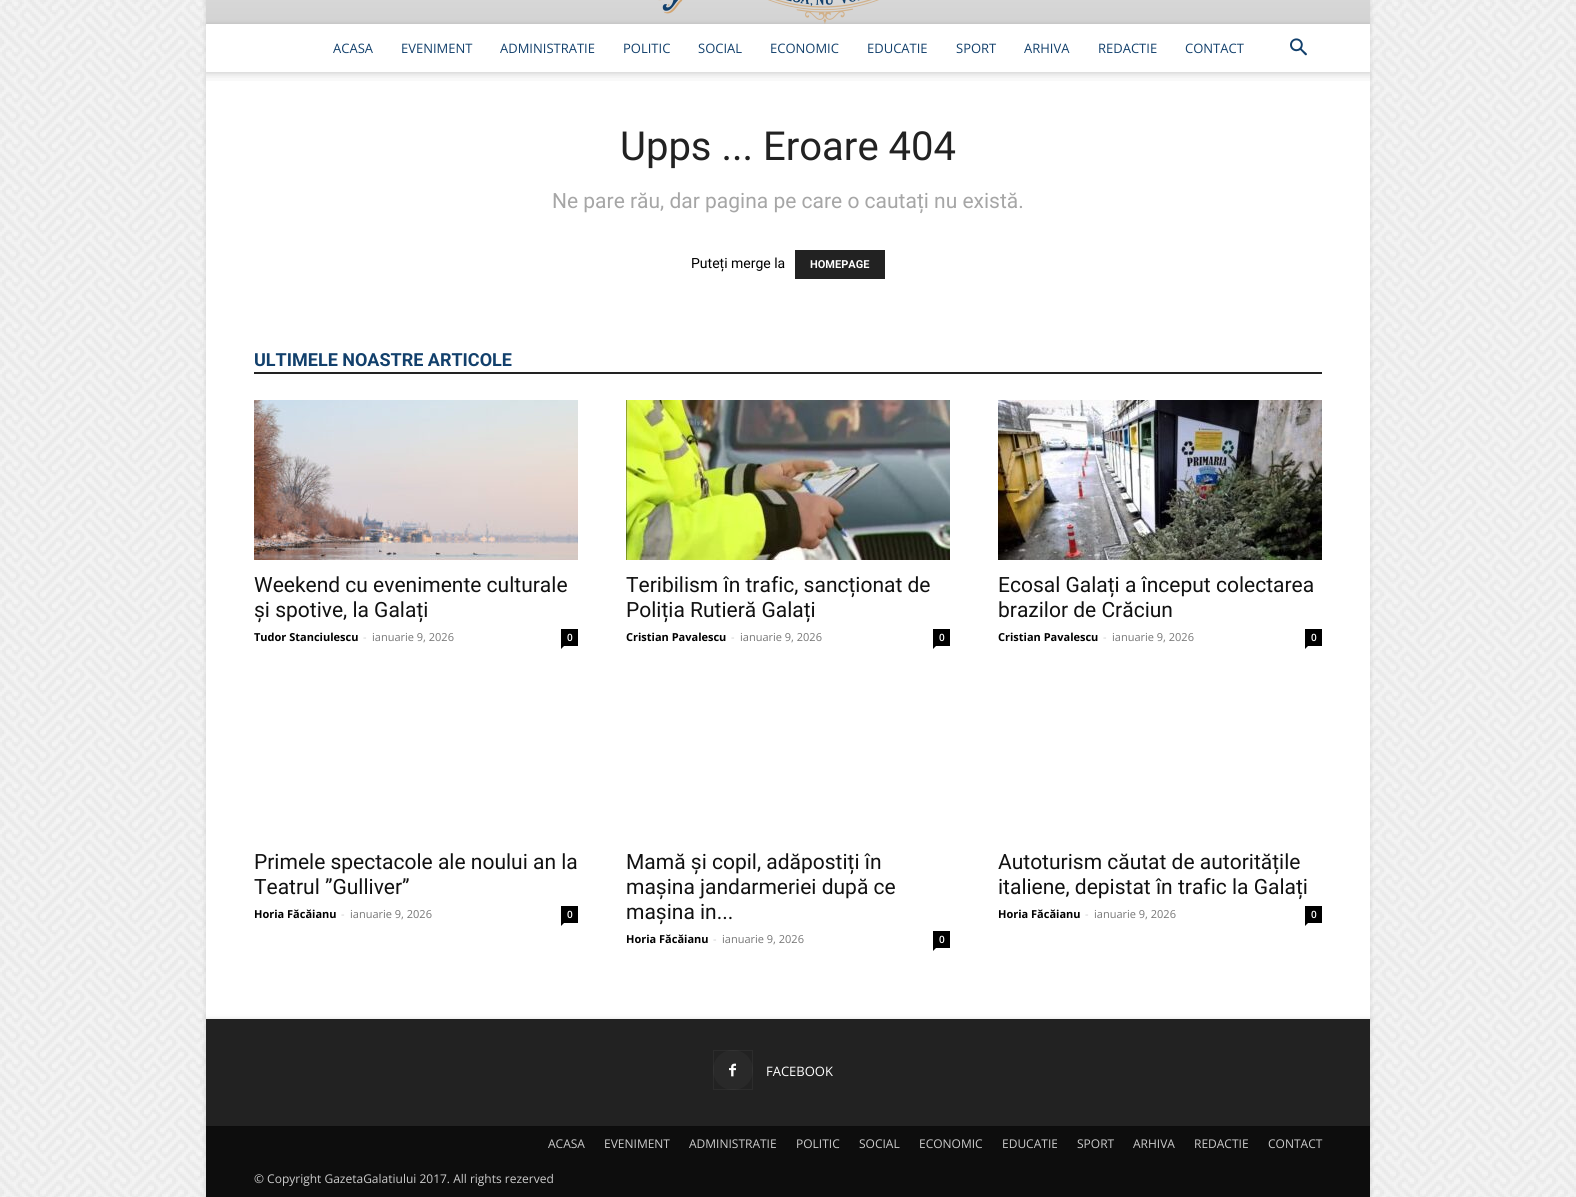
#include <cairo.h>
#include <math.h>
#include <stddef.h>

typedef struct { double x, y; const char *s; } line_t;

static void ink(cairo_t *ctx, unsigned color) {
    cairo_set_source_rgb(ctx, (color >> 16) / 255.0, (color >> 8 & 255) / 255.0, (color & 255) / 255.0);
}

static void round_path(cairo_t *ctx, double x, double y, double w, double h, double r) {
    cairo_new_sub_path(ctx);
    cairo_arc(ctx, x + w - r, y + h - r, r, 0, M_PI / 2);
    cairo_arc(ctx, x + r, y + h - r, r, M_PI / 2, M_PI);
    cairo_arc(ctx, x + r, y + r, r, M_PI, 1.5 * M_PI);
    cairo_arc(ctx, x + w - r, y + r, r, 1.5 * M_PI, 2 * M_PI);
    cairo_close_path(ctx);
}

static void blur_box(cairo_t *ctx, double x, double y, double w, double h, double r, double blur, double alpha) {
    cairo_push_group_with_content(ctx, CAIRO_CONTENT_ALPHA);
    cairo_set_operator(ctx, CAIRO_OPERATOR_SOURCE);
    for (int i = 15; i >= -15 && fmin(w, h) + blur * i / 3 > 0; i -= 2) {
        double e = blur * i / 6;
        cairo_set_source_rgba(ctx, 0, 0, 0, alpha * erfc((i - 1) / 8.5) / 2);
        round_path(ctx, x - e, y - e, w + 2 * e, h + 2 * e, fmax(0, fmin(r + e + blur * .6, fmin(w, h) / 2 + e)));
        cairo_fill(ctx);
    }
    cairo_pattern_t *soft = cairo_pop_group(ctx);
    cairo_mask(ctx, soft);
    cairo_pattern_destroy(soft);
}

static void paste(cairo_t *ctx, const char *path, double x, double y, double w, double h) {
    cairo_surface_t *image = cairo_image_surface_create_from_png(path);
    cairo_save(ctx);
    cairo_set_source_surface(ctx, image, x, y);
    cairo_rectangle(ctx, x, y, w, h);
    cairo_fill(ctx);
    cairo_restore(ctx);
    cairo_surface_destroy(image);
}

int main(void) {
    cairo_surface_t *surface = cairo_image_surface_create(CAIRO_FORMAT_RGB24, 1576, 1197);
    cairo_t *ctx = cairo_create(surface);
    cairo_font_options_t *options = cairo_font_options_create();
    cairo_font_options_set_hint_metrics(options, CAIRO_HINT_METRICS_OFF);
    cairo_font_options_set_hint_style(options, CAIRO_HINT_STYLE_NONE);
    cairo_set_font_options(ctx, options);
    cairo_set_miter_limit(ctx, 4);
    cairo_pattern_t *gradient;
    ink(ctx, 0xFFFFFF);
    cairo_paint(ctx);
    paste(ctx, "media/1.png", 0, 0, 1576, 1197);
    ink(ctx, 0x000000);
    blur_box(ctx, 206, -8, 1164, 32, 0, 2.5, 0.12);
    gradient = cairo_pattern_create_linear(788, -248, 788, 24);
    cairo_pattern_add_color_stop_rgba(gradient, 0, 1, 1, 1, 1);
    cairo_pattern_add_color_stop_rgba(gradient, 1, 0.827, 0.827, 0.827, 1);
    cairo_set_source(ctx, gradient);
    cairo_pattern_destroy(gradient);
    cairo_rectangle(ctx, 206, 0, 1164, 24);
    cairo_fill(ctx);
    paste(ctx, "media/2.png", 658, 0, 221, 24);
    ink(ctx, 0x000000);
    blur_box(ctx, 206, 72, 1164, 947, 0, 2.5, 0.12);
    ink(ctx, 0xFFFFFF);
    cairo_rectangle(ctx, 206, 72, 1164, 947);
    cairo_fill(ctx);
    ink(ctx, 0x000000);
    blur_box(ctx, 206, 24, 1164, 48, 0, 2.5, 0.12);
    ink(ctx, 0xFFFFFF);
    cairo_rectangle(ctx, 206, 24, 1164, 48);
    cairo_fill(ctx);
    cairo_select_font_face(ctx, "Open Sans", CAIRO_FONT_SLANT_NORMAL, CAIRO_FONT_WEIGHT_NORMAL);
    cairo_set_font_size(ctx, 13);
    ink(ctx, 0x12406C);
    {
        static const line_t items[] = {
            {333, 53, "ACASA"},
            {401, 53, "EVENIMENT"},
            {500, 53, "ADMINISTRATIE"},
            {623, 53, "POLITIC"},
            {698, 53, "SOCIAL"},
            {770, 53, "ECONOMIC"},
            {867, 53, "EDUCATIE"},
            {956, 53, "SPORT"},
            {1024, 53, "ARHIVA"},
            {1098, 53, "REDACTIE"},
            {1185, 53, "CONTACT"},
        };
        for (size_t i = 0; i < sizeof items / sizeof *items; i++) {
            cairo_move_to(ctx, items[i].x, items[i].y);
            cairo_show_text(ctx, items[i].s);
        }
    }
    paste(ctx, "media/3.png", 1290, 38, 17, 18);
    paste(ctx, "media/4.png", 206, 72, 1164, 9);
    cairo_select_font_face(ctx, "Roboto", CAIRO_FONT_SLANT_NORMAL, CAIRO_FONT_WEIGHT_NORMAL);
    cairo_set_font_size(ctx, 40);
    ink(ctx, 0x222222);
    cairo_move_to(ctx, 620, 160);
    cairo_show_text(ctx, "Upps ... Eroare 404");
    cairo_set_font_size(ctx, 21);
    ink(ctx, 0xA6A6A6);
    cairo_move_to(ctx, 552, 208);
    cairo_show_text(ctx, "Ne pare rău, dar pagina pe care o cautați nu există.");
    cairo_set_font_size(ctx, 14);
    ink(ctx, 0x000000);
    cairo_move_to(ctx, 691, 268);
    cairo_show_text(ctx, "Puteți merge la");
    ink(ctx, 0x222222);
    cairo_rectangle(ctx, 795, 250, 90, 29);
    cairo_fill(ctx);
    cairo_select_font_face(ctx, "Roboto", CAIRO_FONT_SLANT_NORMAL, CAIRO_FONT_WEIGHT_BOLD);
    cairo_set_font_size(ctx, 11);
    ink(ctx, 0xFFFFFF);
    cairo_move_to(ctx, 810, 268);
    cairo_show_text(ctx, "HOMEPAGE");
    ink(ctx, 0x222222);
    cairo_rectangle(ctx, 254, 372, 1068, 2);
    cairo_fill(ctx);
    cairo_set_font_size(ctx, 18);
    ink(ctx, 0x12406C);
    cairo_move_to(ctx, 254, 366);
    cairo_show_text(ctx, "ULTIMELE NOASTRE ARTICOLE");
    paste(ctx, "media/5.png", 254, 400, 324, 160);
    cairo_select_font_face(ctx, "Roboto", CAIRO_FONT_SLANT_NORMAL, CAIRO_FONT_WEIGHT_NORMAL);
    cairo_set_font_size(ctx, 21);
    ink(ctx, 0x111111);
    cairo_move_to(ctx, 254, 592);
    cairo_show_text(ctx, "Weekend cu evenimente culturale");
    cairo_move_to(ctx, 254, 617);
    cairo_show_text(ctx, "și spotive, la Galați");
    cairo_select_font_face(ctx, "Open Sans", CAIRO_FONT_SLANT_NORMAL, CAIRO_FONT_WEIGHT_BOLD);
    cairo_set_font_size(ctx, 11);
    ink(ctx, 0x000000);
    cairo_move_to(ctx, 254, 641);
    cairo_show_text(ctx, "Tudor Stanciulescu");
    cairo_select_font_face(ctx, "Open Sans", CAIRO_FONT_SLANT_NORMAL, CAIRO_FONT_WEIGHT_NORMAL);
    ink(ctx, 0xCCCCCC);
    cairo_move_to(ctx, 363, 641);
    cairo_show_text(ctx, "-");
    ink(ctx, 0x767676);
    cairo_move_to(ctx, 372, 641);
    cairo_show_text(ctx, "ianuarie 9, 2026");
    ink(ctx, 0x000000);
    cairo_rectangle(ctx, 561, 629, 17, 17);
    cairo_fill(ctx);
    cairo_select_font_face(ctx, "Open Sans SemiBold", CAIRO_FONT_SLANT_NORMAL, CAIRO_FONT_WEIGHT_NORMAL);
    cairo_set_font_size(ctx, 10);
    ink(ctx, 0xFFFFFF);
    cairo_move_to(ctx, 567, 641);
    cairo_show_text(ctx, "0");
    ink(ctx, 0x000000);
    cairo_new_path(ctx);
    cairo_move_to(ctx, 561, 646);
    cairo_line_to(ctx, 564, 646);
    cairo_line_to(ctx, 561, 649);
    cairo_close_path(ctx);
    cairo_fill(ctx);
    paste(ctx, "media/6.png", 626, 400, 324, 160);
    cairo_select_font_face(ctx, "Roboto", CAIRO_FONT_SLANT_NORMAL, CAIRO_FONT_WEIGHT_NORMAL);
    cairo_set_font_size(ctx, 21);
    ink(ctx, 0x111111);
    cairo_move_to(ctx, 626, 592);
    cairo_show_text(ctx, "Teribilism în trafic, sancționat de");
    cairo_move_to(ctx, 626, 617);
    cairo_show_text(ctx, "Poliția Rutieră Galați");
    cairo_select_font_face(ctx, "Open Sans", CAIRO_FONT_SLANT_NORMAL, CAIRO_FONT_WEIGHT_BOLD);
    cairo_set_font_size(ctx, 11);
    ink(ctx, 0x000000);
    cairo_move_to(ctx, 626, 641);
    cairo_show_text(ctx, "Cristian Pavalescu");
    cairo_select_font_face(ctx, "Open Sans", CAIRO_FONT_SLANT_NORMAL, CAIRO_FONT_WEIGHT_NORMAL);
    ink(ctx, 0xCCCCCC);
    cairo_move_to(ctx, 731, 641);
    cairo_show_text(ctx, "-");
    ink(ctx, 0x767676);
    cairo_move_to(ctx, 740, 641);
    cairo_show_text(ctx, "ianuarie 9, 2026");
    ink(ctx, 0x000000);
    cairo_rectangle(ctx, 933, 629, 17, 17);
    cairo_fill(ctx);
    cairo_select_font_face(ctx, "Open Sans SemiBold", CAIRO_FONT_SLANT_NORMAL, CAIRO_FONT_WEIGHT_NORMAL);
    cairo_set_font_size(ctx, 10);
    ink(ctx, 0xFFFFFF);
    cairo_move_to(ctx, 939, 641);
    cairo_show_text(ctx, "0");
    ink(ctx, 0x000000);
    cairo_new_path(ctx);
    cairo_move_to(ctx, 933, 646);
    cairo_line_to(ctx, 936, 646);
    cairo_line_to(ctx, 933, 649);
    cairo_close_path(ctx);
    cairo_fill(ctx);
    paste(ctx, "media/7.png", 998, 400, 324, 160);
    cairo_select_font_face(ctx, "Roboto", CAIRO_FONT_SLANT_NORMAL, CAIRO_FONT_WEIGHT_NORMAL);
    cairo_set_font_size(ctx, 21);
    ink(ctx, 0x111111);
    cairo_move_to(ctx, 998, 592);
    cairo_show_text(ctx, "Ecosal Galați a început colectarea");
    cairo_move_to(ctx, 998, 617);
    cairo_show_text(ctx, "brazilor de Crăciun");
    cairo_select_font_face(ctx, "Open Sans", CAIRO_FONT_SLANT_NORMAL, CAIRO_FONT_WEIGHT_BOLD);
    cairo_set_font_size(ctx, 11);
    ink(ctx, 0x000000);
    cairo_move_to(ctx, 998, 641);
    cairo_show_text(ctx, "Cristian Pavalescu");
    cairo_select_font_face(ctx, "Open Sans", CAIRO_FONT_SLANT_NORMAL, CAIRO_FONT_WEIGHT_NORMAL);
    ink(ctx, 0xCCCCCC);
    cairo_move_to(ctx, 1103, 641);
    cairo_show_text(ctx, "-");
    ink(ctx, 0x767676);
    cairo_move_to(ctx, 1112, 641);
    cairo_show_text(ctx, "ianuarie 9, 2026");
    ink(ctx, 0x000000);
    cairo_rectangle(ctx, 1305, 629, 17, 17);
    cairo_fill(ctx);
    cairo_select_font_face(ctx, "Open Sans SemiBold", CAIRO_FONT_SLANT_NORMAL, CAIRO_FONT_WEIGHT_NORMAL);
    cairo_set_font_size(ctx, 10);
    ink(ctx, 0xFFFFFF);
    cairo_move_to(ctx, 1311, 641);
    cairo_show_text(ctx, "0");
    ink(ctx, 0x000000);
    cairo_new_path(ctx);
    cairo_move_to(ctx, 1305, 646);
    cairo_line_to(ctx, 1308, 646);
    cairo_line_to(ctx, 1305, 649);
    cairo_close_path(ctx);
    cairo_fill(ctx);
    cairo_select_font_face(ctx, "Roboto", CAIRO_FONT_SLANT_NORMAL, CAIRO_FONT_WEIGHT_NORMAL);
    cairo_set_font_size(ctx, 21);
    ink(ctx, 0x111111);
    cairo_move_to(ctx, 254, 869);
    cairo_show_text(ctx, "Primele spectacole ale noului an la");
    cairo_move_to(ctx, 254, 894);
    cairo_show_text(ctx, "Teatrul ”Gulliver”");
    cairo_select_font_face(ctx, "Open Sans", CAIRO_FONT_SLANT_NORMAL, CAIRO_FONT_WEIGHT_BOLD);
    cairo_set_font_size(ctx, 11);
    ink(ctx, 0x000000);
    cairo_move_to(ctx, 254, 918);
    cairo_show_text(ctx, "Horia Făcăianu");
    cairo_select_font_face(ctx, "Open Sans", CAIRO_FONT_SLANT_NORMAL, CAIRO_FONT_WEIGHT_NORMAL);
    ink(ctx, 0xCCCCCC);
    cairo_move_to(ctx, 341, 918);
    cairo_show_text(ctx, "-");
    ink(ctx, 0x767676);
    cairo_move_to(ctx, 350, 918);
    cairo_show_text(ctx, "ianuarie 9, 2026");
    ink(ctx, 0x000000);
    cairo_rectangle(ctx, 561, 906, 17, 17);
    cairo_fill(ctx);
    cairo_select_font_face(ctx, "Open Sans SemiBold", CAIRO_FONT_SLANT_NORMAL, CAIRO_FONT_WEIGHT_NORMAL);
    cairo_set_font_size(ctx, 10);
    ink(ctx, 0xFFFFFF);
    cairo_move_to(ctx, 567, 918);
    cairo_show_text(ctx, "0");
    ink(ctx, 0x000000);
    cairo_new_path(ctx);
    cairo_move_to(ctx, 561, 923);
    cairo_line_to(ctx, 564, 923);
    cairo_line_to(ctx, 561, 926);
    cairo_close_path(ctx);
    cairo_fill(ctx);
    cairo_select_font_face(ctx, "Roboto", CAIRO_FONT_SLANT_NORMAL, CAIRO_FONT_WEIGHT_NORMAL);
    cairo_set_font_size(ctx, 21);
    ink(ctx, 0x111111);
    {
        static const line_t items[] = {
            {626, 869, "Mamă și copil, adăpostiți în"},
            {626, 894, "mașina jandarmeriei după ce"},
            {626, 919, "mașina in..."},
        };
        for (size_t i = 0; i < sizeof items / sizeof *items; i++) {
            cairo_move_to(ctx, items[i].x, items[i].y);
            cairo_show_text(ctx, items[i].s);
        }
    }
    cairo_select_font_face(ctx, "Open Sans", CAIRO_FONT_SLANT_NORMAL, CAIRO_FONT_WEIGHT_BOLD);
    cairo_set_font_size(ctx, 11);
    ink(ctx, 0x000000);
    cairo_move_to(ctx, 626, 943);
    cairo_show_text(ctx, "Horia Făcăianu");
    cairo_select_font_face(ctx, "Open Sans", CAIRO_FONT_SLANT_NORMAL, CAIRO_FONT_WEIGHT_NORMAL);
    ink(ctx, 0xCCCCCC);
    cairo_move_to(ctx, 713, 943);
    cairo_show_text(ctx, "-");
    ink(ctx, 0x767676);
    cairo_move_to(ctx, 722, 943);
    cairo_show_text(ctx, "ianuarie 9, 2026");
    ink(ctx, 0x000000);
    cairo_rectangle(ctx, 933, 931, 17, 17);
    cairo_fill(ctx);
    cairo_select_font_face(ctx, "Open Sans SemiBold", CAIRO_FONT_SLANT_NORMAL, CAIRO_FONT_WEIGHT_NORMAL);
    cairo_set_font_size(ctx, 10);
    ink(ctx, 0xFFFFFF);
    cairo_move_to(ctx, 939, 943);
    cairo_show_text(ctx, "0");
    ink(ctx, 0x000000);
    cairo_new_path(ctx);
    cairo_move_to(ctx, 933, 948);
    cairo_line_to(ctx, 936, 948);
    cairo_line_to(ctx, 933, 951);
    cairo_close_path(ctx);
    cairo_fill(ctx);
    cairo_select_font_face(ctx, "Roboto", CAIRO_FONT_SLANT_NORMAL, CAIRO_FONT_WEIGHT_NORMAL);
    cairo_set_font_size(ctx, 21);
    ink(ctx, 0x111111);
    cairo_move_to(ctx, 998, 869);
    cairo_show_text(ctx, "Autoturism căutat de autoritățile");
    cairo_move_to(ctx, 998, 894);
    cairo_show_text(ctx, "italiene, depistat în trafic la Galați");
    cairo_select_font_face(ctx, "Open Sans", CAIRO_FONT_SLANT_NORMAL, CAIRO_FONT_WEIGHT_BOLD);
    cairo_set_font_size(ctx, 11);
    ink(ctx, 0x000000);
    cairo_move_to(ctx, 998, 918);
    cairo_show_text(ctx, "Horia Făcăianu");
    cairo_select_font_face(ctx, "Open Sans", CAIRO_FONT_SLANT_NORMAL, CAIRO_FONT_WEIGHT_NORMAL);
    ink(ctx, 0xCCCCCC);
    cairo_move_to(ctx, 1085, 918);
    cairo_show_text(ctx, "-");
    ink(ctx, 0x767676);
    cairo_move_to(ctx, 1094, 918);
    cairo_show_text(ctx, "ianuarie 9, 2026");
    ink(ctx, 0x000000);
    cairo_rectangle(ctx, 1305, 906, 17, 17);
    cairo_fill(ctx);
    cairo_select_font_face(ctx, "Open Sans SemiBold", CAIRO_FONT_SLANT_NORMAL, CAIRO_FONT_WEIGHT_NORMAL);
    cairo_set_font_size(ctx, 10);
    ink(ctx, 0xFFFFFF);
    cairo_move_to(ctx, 1311, 918);
    cairo_show_text(ctx, "0");
    ink(ctx, 0x000000);
    cairo_new_path(ctx);
    cairo_move_to(ctx, 1305, 923);
    cairo_line_to(ctx, 1308, 923);
    cairo_line_to(ctx, 1305, 926);
    cairo_close_path(ctx);
    cairo_fill(ctx);
    ink(ctx, 0x000000);
    blur_box(ctx, 206, 1126, 1164, 71, 0, 2.5, 0.12);
    ink(ctx, 0x0D0D0D);
    cairo_rectangle(ctx, 206, 1126, 1164, 71);
    cairo_fill(ctx);
    ink(ctx, 0x000000);
    blur_box(ctx, 206, 1019, 1164, 107, 0, 2.5, 0.12);
    ink(ctx, 0x222222);
    cairo_rectangle(ctx, 206, 1019, 1164, 107);
    cairo_fill(ctx);
    ink(ctx, 0x292929);
    cairo_arc(ctx, 733, 1070, 20, 0, 2 * M_PI);
    cairo_fill(ctx);
    paste(ctx, "media/8.png", 729, 1063, 7, 14);
    cairo_rectangle(ctx, 713.5, 1050.5, 39, 39);
    cairo_set_source_rgba(ctx, 1, 1, 1, 0.05);
    cairo_set_line_width(ctx, 1);
    cairo_stroke(ctx);
    cairo_select_font_face(ctx, "Open Sans", CAIRO_FONT_SLANT_NORMAL, CAIRO_FONT_WEIGHT_NORMAL);
    cairo_set_font_size(ctx, 13);
    ink(ctx, 0xFFFFFF);
    cairo_move_to(ctx, 766, 1076);
    cairo_show_text(ctx, "FACEBOOK");
    cairo_set_font_size(ctx, 12);
    ink(ctx, 0xCCCCCC);
    {
        static const line_t items[] = {
            {548, 1148, "ACASA"},
            {604, 1148, "EVENIMENT"},
            {689, 1148, "ADMINISTRATIE"},
            {796, 1148, "POLITIC"},
            {859, 1148, "SOCIAL"},
            {919, 1148, "ECONOMIC"},
            {1002, 1148, "EDUCATIE"},
            {1077, 1148, "SPORT"},
            {1133, 1148, "ARHIVA"},
            {1194, 1148, "REDACTIE"},
            {1268, 1148, "CONTACT"},
            {254, 1183, "© Copyright GazetaGalatiului 2017. All rights rezerved"},
        };
        for (size_t i = 0; i < sizeof items / sizeof *items; i++) {
            cairo_move_to(ctx, items[i].x, items[i].y);
            cairo_show_text(ctx, items[i].s);
        }
    }
    cairo_surface_write_to_png(surface, "image.png");
    cairo_font_options_destroy(options);
    cairo_destroy(ctx);
    cairo_surface_destroy(surface);
    return 0;
}
